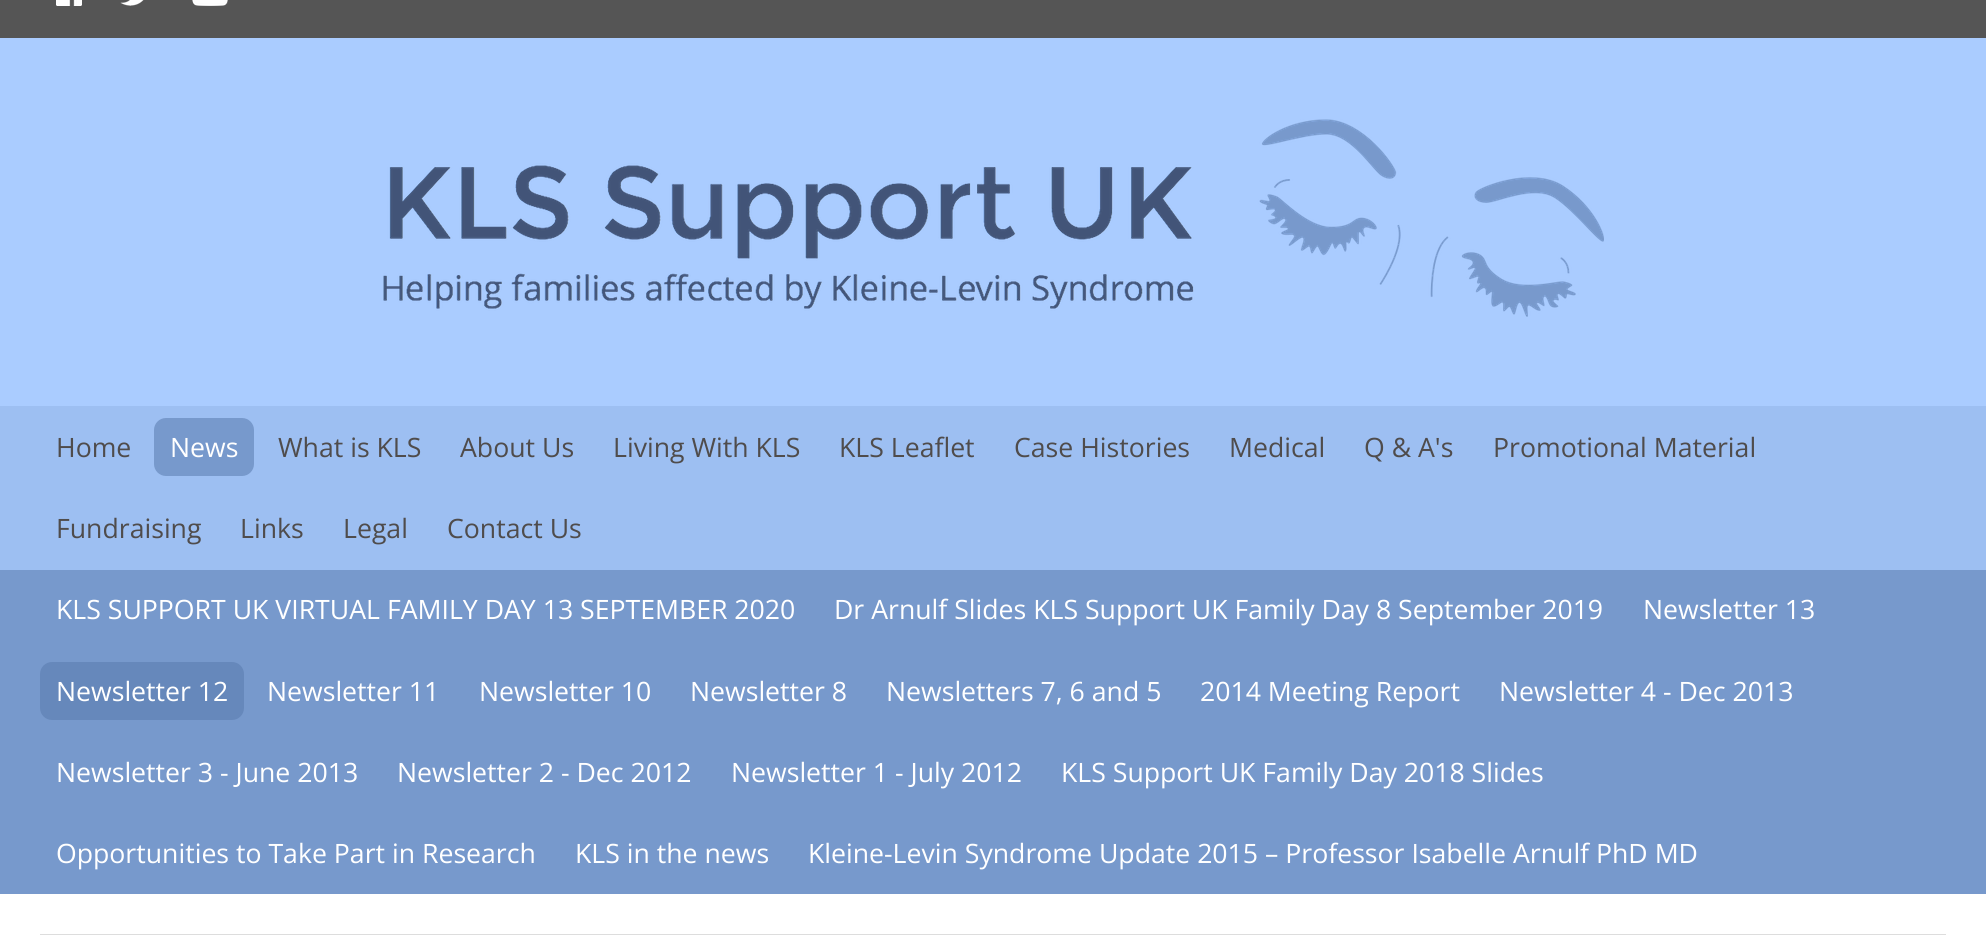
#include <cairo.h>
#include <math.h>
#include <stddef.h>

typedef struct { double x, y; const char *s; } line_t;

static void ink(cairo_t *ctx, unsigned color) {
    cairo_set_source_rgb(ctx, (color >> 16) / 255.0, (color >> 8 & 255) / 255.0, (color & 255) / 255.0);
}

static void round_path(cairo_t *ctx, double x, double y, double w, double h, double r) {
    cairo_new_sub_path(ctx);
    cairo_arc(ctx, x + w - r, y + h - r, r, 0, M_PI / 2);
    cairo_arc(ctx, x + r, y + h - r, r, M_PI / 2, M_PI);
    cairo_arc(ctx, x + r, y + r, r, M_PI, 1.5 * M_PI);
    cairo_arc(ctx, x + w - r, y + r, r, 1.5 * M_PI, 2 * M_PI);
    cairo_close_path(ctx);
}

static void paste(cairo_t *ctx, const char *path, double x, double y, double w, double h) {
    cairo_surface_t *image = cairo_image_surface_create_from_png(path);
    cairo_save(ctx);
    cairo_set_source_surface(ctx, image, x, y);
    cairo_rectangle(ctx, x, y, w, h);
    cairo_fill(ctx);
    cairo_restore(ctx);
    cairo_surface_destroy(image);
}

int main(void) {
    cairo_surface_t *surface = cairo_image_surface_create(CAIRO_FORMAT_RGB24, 1986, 935);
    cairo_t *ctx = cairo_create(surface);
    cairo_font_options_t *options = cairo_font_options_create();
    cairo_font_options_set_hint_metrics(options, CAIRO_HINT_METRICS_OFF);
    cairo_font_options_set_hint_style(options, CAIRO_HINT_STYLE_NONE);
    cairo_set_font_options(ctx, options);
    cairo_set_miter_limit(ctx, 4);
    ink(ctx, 0xFFFFFF);
    cairo_paint(ctx);
    ink(ctx, 0x555555);
    cairo_rectangle(ctx, 0, 0, 1986, 38);
    cairo_fill(ctx);
    paste(ctx, "media/1.png", 56, 0, 26, 6);
    paste(ctx, "media/2.png", 120, 0, 24, 6);
    paste(ctx, "media/3.png", 192, 0, 36, 6);
    ink(ctx, 0xAACCFF);
    cairo_rectangle(ctx, 0, 38, 1986, 368);
    cairo_fill(ctx);
    paste(ctx, "media/4.png", 383, 119, 1221, 198);
    ink(ctx, 0x9DBFF2);
    cairo_rectangle(ctx, 0, 406, 1986, 164);
    cairo_fill(ctx);
    cairo_select_font_face(ctx, "Open Sans", CAIRO_FONT_SLANT_NORMAL, CAIRO_FONT_WEIGHT_NORMAL);
    cairo_set_font_size(ctx, 26.65);
    ink(ctx, 0x4F4C4C);
    cairo_move_to(ctx, 56, 457);
    cairo_show_text(ctx, "Home");
    ink(ctx, 0x7799CC);
    round_path(ctx, 154, 418, 100, 58, 12);
    cairo_fill(ctx);
    ink(ctx, 0xFFFFFF);
    cairo_move_to(ctx, 170, 457);
    cairo_show_text(ctx, "News");
    ink(ctx, 0x4F4C4C);
    {
        static const line_t items[] = {
            {278, 457, "What is KLS"},
            {460, 457, "About Us"},
            {613, 457, "Living With KLS"},
            {839, 457, "KLS Leaflet"},
            {1014, 457, "Case Histories"},
            {1229, 457, "Medical"},
            {1364, 457, "Q & A's"},
            {1493, 457, "Promotional Material"},
            {56, 538, "Fundraising"},
            {240, 538, "Links"},
            {343, 538, "Legal"},
            {447, 538, "Contact Us"},
        };
        for (size_t i = 0; i < sizeof items / sizeof *items; i++) {
            cairo_move_to(ctx, items[i].x, items[i].y);
            cairo_show_text(ctx, items[i].s);
        }
    }
    ink(ctx, 0x7799CC);
    cairo_rectangle(ctx, 0, 570, 1986, 324);
    cairo_fill(ctx);
    ink(ctx, 0xFFFFFF);
    {
        static const line_t items[] = {
            {56, 619, "KLS SUPPORT UK VIRTUAL FAMILY DAY 13 SEPTEMBER 2020"},
            {834, 619, "Dr Arnulf Slides KLS Support UK Family Day 8 September 2019"},
            {1643, 619, "Newsletter 13"},
        };
        for (size_t i = 0; i < sizeof items / sizeof *items; i++) {
            cairo_move_to(ctx, items[i].x, items[i].y);
            cairo_show_text(ctx, items[i].s);
        }
    }
    ink(ctx, 0x6688BB);
    round_path(ctx, 40, 662, 204, 58, 12);
    cairo_fill(ctx);
    ink(ctx, 0xFFFFFF);
    {
        static const line_t items[] = {
            {56, 701, "Newsletter 12"},
            {267, 701, "Newsletter 11"},
            {479, 701, "Newsletter 10"},
            {690, 701, "Newsletter 8"},
            {886, 701, "Newsletters 7, 6 and 5"},
            {1200, 701, "2014 Meeting Report"},
            {1499, 701, "Newsletter 4 - Dec 2013"},
            {56, 782, "Newsletter 3 - June 2013"},
            {397, 782, "Newsletter 2 - Dec 2012"},
            {731, 782, "Newsletter 1 - July 2012"},
            {1061, 782, "KLS Support UK Family Day 2018 Slides"},
            {56, 863, "Opportunities to Take Part in Research"},
            {575, 863, "KLS in the news"},
            {808, 863, "Kleine-Levin Syndrome Update 2015 – Professor Isabelle Arnulf PhD MD"},
        };
        for (size_t i = 0; i < sizeof items / sizeof *items; i++) {
            cairo_move_to(ctx, items[i].x, items[i].y);
            cairo_show_text(ctx, items[i].s);
        }
    }
    cairo_rectangle(ctx, 41, 935, 1904, 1);
    ink(ctx, 0xDDDDDD);
    cairo_stroke(ctx);
    cairo_surface_write_to_png(surface, "image.png");
    cairo_font_options_destroy(options);
    cairo_destroy(ctx);
    cairo_surface_destroy(surface);
    return 0;
}
